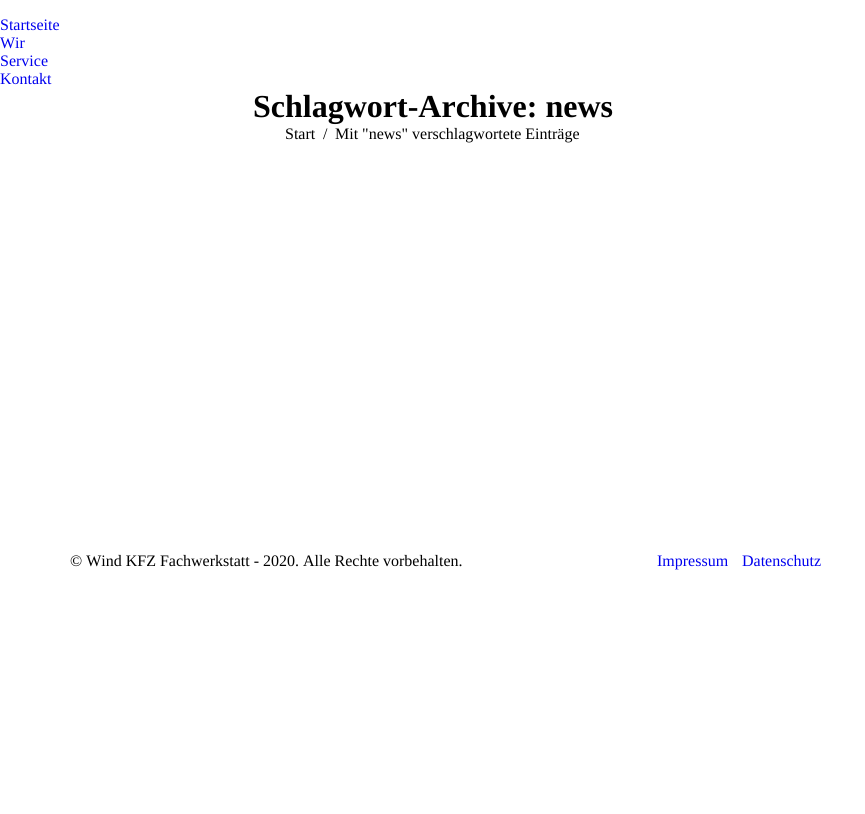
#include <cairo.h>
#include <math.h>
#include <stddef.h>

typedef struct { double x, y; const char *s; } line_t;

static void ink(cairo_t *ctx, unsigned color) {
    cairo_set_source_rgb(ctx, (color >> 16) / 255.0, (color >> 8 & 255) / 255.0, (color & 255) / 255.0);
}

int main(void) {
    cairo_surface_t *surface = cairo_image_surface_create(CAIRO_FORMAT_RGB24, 865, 814);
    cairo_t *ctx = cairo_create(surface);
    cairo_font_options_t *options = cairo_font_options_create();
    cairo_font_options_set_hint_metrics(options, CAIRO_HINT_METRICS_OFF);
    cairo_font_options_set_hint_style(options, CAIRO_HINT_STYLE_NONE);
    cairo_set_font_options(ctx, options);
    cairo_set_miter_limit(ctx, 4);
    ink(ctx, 0xFFFFFF);
    cairo_paint(ctx);
    cairo_select_font_face(ctx, "Liberation Serif", CAIRO_FONT_SLANT_NORMAL, CAIRO_FONT_WEIGHT_NORMAL);
    cairo_set_font_size(ctx, 16);
    ink(ctx, 0x0000EE);
    {
        static const line_t items[] = {
            {0, 30, "Startseite"},
            {0, 48, "Wir"},
            {0, 66, "Service"},
            {0, 84, "Kontakt"},
        };
        for (size_t i = 0; i < sizeof items / sizeof *items; i++) {
            cairo_move_to(ctx, items[i].x, items[i].y);
            cairo_show_text(ctx, items[i].s);
        }
    }
    cairo_select_font_face(ctx, "Liberation Serif", CAIRO_FONT_SLANT_NORMAL, CAIRO_FONT_WEIGHT_BOLD);
    cairo_set_font_size(ctx, 32);
    ink(ctx, 0x000000);
    cairo_move_to(ctx, 253, 117);
    cairo_show_text(ctx, "Schlagwort-Archive: news");
    cairo_select_font_face(ctx, "Liberation Serif", CAIRO_FONT_SLANT_NORMAL, CAIRO_FONT_WEIGHT_NORMAL);
    cairo_set_font_size(ctx, 16);
    {
        static const line_t items[] = {
            {285, 139, "Start"},
            {323, 139, "/"},
            {335, 139, "Mit \"news\" verschlagwortete Einträge"},
            {70, 566, "© Wind KFZ Fachwerkstatt - 2020. Alle Rechte vorbehalten."},
        };
        for (size_t i = 0; i < sizeof items / sizeof *items; i++) {
            cairo_move_to(ctx, items[i].x, items[i].y);
            cairo_show_text(ctx, items[i].s);
        }
    }
    ink(ctx, 0x0000EE);
    cairo_move_to(ctx, 657, 566);
    cairo_show_text(ctx, "Impressum");
    cairo_move_to(ctx, 742, 566);
    cairo_show_text(ctx, "Datenschutz");
    cairo_surface_write_to_png(surface, "image.png");
    cairo_font_options_destroy(options);
    cairo_destroy(ctx);
    cairo_surface_destroy(surface);
    return 0;
}
